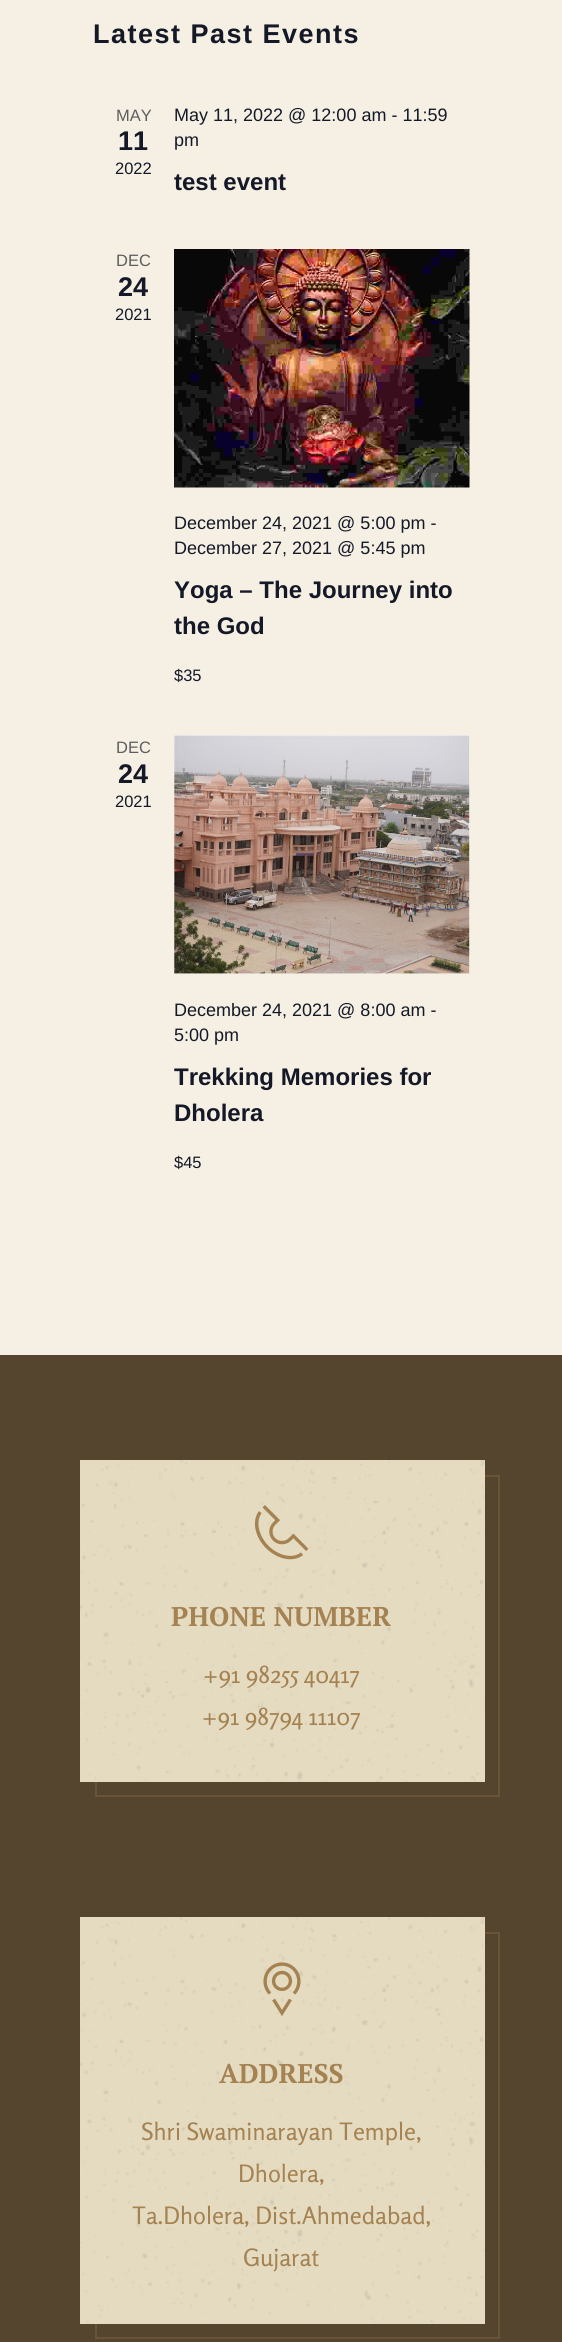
#include <cairo.h>
#include <math.h>
#include <stddef.h>

typedef struct { double x, y; const char *s; } line_t;

static void ink(cairo_t *ctx, unsigned color) {
    cairo_set_source_rgb(ctx, (color >> 16) / 255.0, (color >> 8 & 255) / 255.0, (color & 255) / 255.0);
}

static void write_spaced(cairo_t *ctx, double x, double y, const char *s, double letter, double word) {
    cairo_move_to(ctx, x, y);
    while (*s) {
        char ch[5] = {0};
        int n = 0;
        do ch[n++] = *s++; while ((*s & 0xC0) == 0x80);
        cairo_show_text(ctx, ch);
        cairo_rel_move_to(ctx, letter + word * (*ch == ' '), 0);
    }
}

static void paste(cairo_t *ctx, const char *path, double x, double y, double w, double h) {
    cairo_surface_t *image = cairo_image_surface_create_from_png(path);
    cairo_save(ctx);
    cairo_set_source_surface(ctx, image, x, y);
    cairo_rectangle(ctx, x, y, w, h);
    cairo_fill(ctx);
    cairo_restore(ctx);
    cairo_surface_destroy(image);
}

int main(void) {
    cairo_surface_t *surface = cairo_image_surface_create(CAIRO_FORMAT_RGB24, 562, 2342);
    cairo_t *ctx = cairo_create(surface);
    cairo_font_options_t *options = cairo_font_options_create();
    cairo_font_options_set_hint_metrics(options, CAIRO_HINT_METRICS_OFF);
    cairo_font_options_set_hint_style(options, CAIRO_HINT_STYLE_NONE);
    cairo_set_font_options(ctx, options);
    cairo_set_miter_limit(ctx, 4);
    ink(ctx, 0xF5F0E3);
    cairo_paint(ctx);
    cairo_select_font_face(ctx, "Liberation Sans", CAIRO_FONT_SLANT_NORMAL, CAIRO_FONT_WEIGHT_BOLD);
    cairo_set_font_size(ctx, 27);
    ink(ctx, 0x141827);
    write_spaced(ctx, 93, 43, "Latest Past Events", 1.5, 0);
    cairo_select_font_face(ctx, "Liberation Sans", CAIRO_FONT_SLANT_NORMAL, CAIRO_FONT_WEIGHT_NORMAL);
    cairo_set_font_size(ctx, 16.5);
    ink(ctx, 0x5D5D5D);
    cairo_move_to(ctx, 116, 121);
    cairo_show_text(ctx, "MAY");
    cairo_select_font_face(ctx, "Liberation Sans", CAIRO_FONT_SLANT_NORMAL, CAIRO_FONT_WEIGHT_BOLD);
    cairo_set_font_size(ctx, 27);
    ink(ctx, 0x141827);
    cairo_move_to(ctx, 118, 150);
    cairo_show_text(ctx, "11");
    cairo_select_font_face(ctx, "Liberation Sans", CAIRO_FONT_SLANT_NORMAL, CAIRO_FONT_WEIGHT_NORMAL);
    cairo_set_font_size(ctx, 16.5);
    cairo_move_to(ctx, 115, 174);
    cairo_show_text(ctx, "2022");
    cairo_set_font_size(ctx, 18);
    cairo_move_to(ctx, 174, 121);
    cairo_show_text(ctx, "May 11, 2022 @ 12:00 am - 11:59");
    cairo_move_to(ctx, 174, 146);
    cairo_show_text(ctx, "pm");
    cairo_select_font_face(ctx, "Liberation Sans", CAIRO_FONT_SLANT_NORMAL, CAIRO_FONT_WEIGHT_BOLD);
    cairo_set_font_size(ctx, 24);
    cairo_move_to(ctx, 174, 190);
    cairo_show_text(ctx, "test event");
    cairo_select_font_face(ctx, "Liberation Sans", CAIRO_FONT_SLANT_NORMAL, CAIRO_FONT_WEIGHT_NORMAL);
    cairo_set_font_size(ctx, 16.5);
    ink(ctx, 0x5D5D5D);
    cairo_move_to(ctx, 116, 266);
    cairo_show_text(ctx, "DEC");
    cairo_select_font_face(ctx, "Liberation Sans", CAIRO_FONT_SLANT_NORMAL, CAIRO_FONT_WEIGHT_BOLD);
    cairo_set_font_size(ctx, 27);
    ink(ctx, 0x141827);
    cairo_move_to(ctx, 118, 296);
    cairo_show_text(ctx, "24");
    cairo_select_font_face(ctx, "Liberation Sans", CAIRO_FONT_SLANT_NORMAL, CAIRO_FONT_WEIGHT_NORMAL);
    cairo_set_font_size(ctx, 16.5);
    cairo_move_to(ctx, 115, 320);
    cairo_show_text(ctx, "2021");
    paste(ctx, "media/1.png", 174, 249, 296, 239);
    cairo_set_font_size(ctx, 18);
    cairo_move_to(ctx, 174, 529);
    cairo_show_text(ctx, "December 24, 2021 @ 5:00 pm -");
    cairo_move_to(ctx, 174, 554);
    cairo_show_text(ctx, "December 27, 2021 @ 5:45 pm");
    cairo_select_font_face(ctx, "Liberation Sans", CAIRO_FONT_SLANT_NORMAL, CAIRO_FONT_WEIGHT_BOLD);
    cairo_set_font_size(ctx, 24);
    cairo_move_to(ctx, 174, 598);
    cairo_show_text(ctx, "Yoga – The Journey into");
    cairo_move_to(ctx, 174, 634);
    cairo_show_text(ctx, "the God");
    cairo_select_font_face(ctx, "Liberation Sans", CAIRO_FONT_SLANT_NORMAL, CAIRO_FONT_WEIGHT_NORMAL);
    cairo_set_font_size(ctx, 16.5);
    cairo_move_to(ctx, 174, 681);
    cairo_show_text(ctx, "$35");
    ink(ctx, 0x5D5D5D);
    cairo_move_to(ctx, 116, 753);
    cairo_show_text(ctx, "DEC");
    cairo_select_font_face(ctx, "Liberation Sans", CAIRO_FONT_SLANT_NORMAL, CAIRO_FONT_WEIGHT_BOLD);
    cairo_set_font_size(ctx, 27);
    ink(ctx, 0x141827);
    cairo_move_to(ctx, 118, 783);
    cairo_show_text(ctx, "24");
    cairo_select_font_face(ctx, "Liberation Sans", CAIRO_FONT_SLANT_NORMAL, CAIRO_FONT_WEIGHT_NORMAL);
    cairo_set_font_size(ctx, 16.5);
    cairo_move_to(ctx, 115, 807);
    cairo_show_text(ctx, "2021");
    paste(ctx, "media/2.png", 174, 735, 296, 239);
    cairo_set_font_size(ctx, 18);
    cairo_move_to(ctx, 174, 1016);
    cairo_show_text(ctx, "December 24, 2021 @ 8:00 am -");
    cairo_move_to(ctx, 174, 1041);
    cairo_show_text(ctx, "5:00 pm");
    cairo_select_font_face(ctx, "Liberation Sans", CAIRO_FONT_SLANT_NORMAL, CAIRO_FONT_WEIGHT_BOLD);
    cairo_set_font_size(ctx, 24);
    cairo_move_to(ctx, 174, 1085);
    cairo_show_text(ctx, "Trekking Memories for");
    cairo_move_to(ctx, 174, 1121);
    cairo_show_text(ctx, "Dholera");
    cairo_select_font_face(ctx, "Liberation Sans", CAIRO_FONT_SLANT_NORMAL, CAIRO_FONT_WEIGHT_NORMAL);
    cairo_set_font_size(ctx, 16.5);
    cairo_move_to(ctx, 174, 1168);
    cairo_show_text(ctx, "$45");
    ink(ctx, 0x55452F);
    cairo_rectangle(ctx, 0, 1355, 562, 987);
    cairo_fill(ctx);
    cairo_rectangle(ctx, 96, 1476, 403, 320);
    ink(ctx, 0x695438);
    cairo_stroke(ctx);
    ink(ctx, 0xE5DBC1);
    cairo_rectangle(ctx, 80, 1460, 405, 322);
    cairo_fill(ctx);
    paste(ctx, "media/3.png", 79, 1460, 406, 322);
    paste(ctx, "media/4.png", 254, 1505, 55, 55);
    cairo_select_font_face(ctx, "PT Serif", CAIRO_FONT_SLANT_NORMAL, CAIRO_FONT_WEIGHT_BOLD);
    cairo_set_font_size(ctx, 27);
    ink(ctx, 0xA58251);
    cairo_move_to(ctx, 171, 1626);
    cairo_show_text(ctx, "PHONE NUMBER");
    cairo_select_font_face(ctx, "Rosario", CAIRO_FONT_SLANT_NORMAL, CAIRO_FONT_WEIGHT_NORMAL);
    cairo_set_font_size(ctx, 24);
    cairo_move_to(ctx, 203, 1683);
    cairo_show_text(ctx, "+91 98255 40417");
    cairo_move_to(ctx, 202, 1725);
    cairo_show_text(ctx, "+91 98794 11107");
    cairo_rectangle(ctx, 96, 1933, 403, 405);
    ink(ctx, 0x695438);
    cairo_stroke(ctx);
    ink(ctx, 0xE5DBC1);
    cairo_rectangle(ctx, 80, 1917, 405, 407);
    cairo_fill(ctx);
    paste(ctx, "media/5.png", 79, 1917, 406, 406);
    paste(ctx, "media/6.png", 263, 1962, 38, 54);
    cairo_select_font_face(ctx, "PT Serif", CAIRO_FONT_SLANT_NORMAL, CAIRO_FONT_WEIGHT_BOLD);
    cairo_set_font_size(ctx, 27);
    ink(ctx, 0xA58251);
    cairo_move_to(ctx, 219, 2083);
    cairo_show_text(ctx, "ADDRESS");
    cairo_select_font_face(ctx, "Rosario", CAIRO_FONT_SLANT_NORMAL, CAIRO_FONT_WEIGHT_NORMAL);
    cairo_set_font_size(ctx, 24);
    {
        static const line_t items[] = {
            {141, 2140, "Shri Swaminarayan Temple,"},
            {238, 2182, "Dholera,"},
            {132, 2224, "Ta.Dholera, Dist.Ahmedabad,"},
            {243, 2266, "Gujarat"},
        };
        for (size_t i = 0; i < sizeof items / sizeof *items; i++) {
            cairo_move_to(ctx, items[i].x, items[i].y);
            cairo_show_text(ctx, items[i].s);
        }
    }
    cairo_surface_write_to_png(surface, "image.png");
    cairo_font_options_destroy(options);
    cairo_destroy(ctx);
    cairo_surface_destroy(surface);
    return 0;
}
